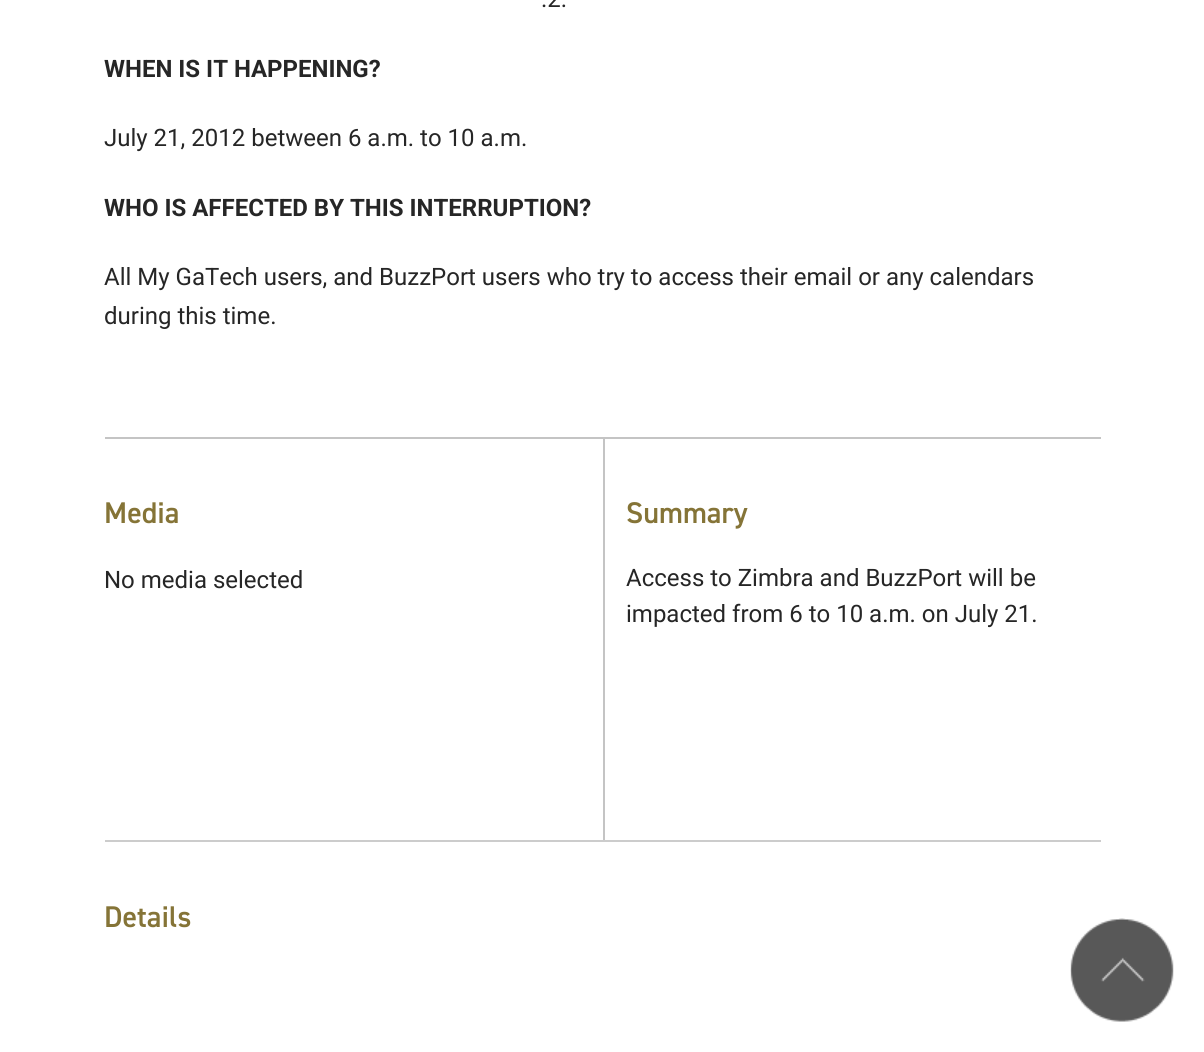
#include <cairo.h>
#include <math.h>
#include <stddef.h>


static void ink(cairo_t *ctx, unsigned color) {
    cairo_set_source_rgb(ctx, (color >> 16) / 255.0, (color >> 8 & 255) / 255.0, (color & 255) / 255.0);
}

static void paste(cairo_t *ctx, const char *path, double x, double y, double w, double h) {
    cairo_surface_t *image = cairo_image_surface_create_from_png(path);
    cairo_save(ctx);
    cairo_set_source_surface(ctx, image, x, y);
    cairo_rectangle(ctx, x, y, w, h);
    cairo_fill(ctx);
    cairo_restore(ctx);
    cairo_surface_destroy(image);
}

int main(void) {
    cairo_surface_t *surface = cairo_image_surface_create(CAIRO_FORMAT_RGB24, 1204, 1052);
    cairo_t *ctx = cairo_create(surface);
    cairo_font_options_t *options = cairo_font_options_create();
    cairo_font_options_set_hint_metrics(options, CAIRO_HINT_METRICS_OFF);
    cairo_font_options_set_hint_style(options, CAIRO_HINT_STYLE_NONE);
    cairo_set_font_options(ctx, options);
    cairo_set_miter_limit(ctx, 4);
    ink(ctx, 0xFFFFFF);
    cairo_paint(ctx);
    cairo_select_font_face(ctx, "Roboto", CAIRO_FONT_SLANT_NORMAL, CAIRO_FONT_WEIGHT_NORMAL);
    cairo_set_font_size(ctx, 24);
    ink(ctx, 0x262626);
    cairo_move_to(ctx, 541, 7);
    cairo_show_text(ctx, ".2.");
    cairo_select_font_face(ctx, "Roboto", CAIRO_FONT_SLANT_NORMAL, CAIRO_FONT_WEIGHT_BOLD);
    cairo_move_to(ctx, 104, 77);
    cairo_show_text(ctx, "WHEN IS IT HAPPENING?");
    cairo_select_font_face(ctx, "Roboto", CAIRO_FONT_SLANT_NORMAL, CAIRO_FONT_WEIGHT_NORMAL);
    cairo_move_to(ctx, 104, 146);
    cairo_show_text(ctx, "July 21, 2012 between 6 a.m. to 10 a.m.");
    cairo_select_font_face(ctx, "Roboto", CAIRO_FONT_SLANT_NORMAL, CAIRO_FONT_WEIGHT_BOLD);
    cairo_move_to(ctx, 104, 216);
    cairo_show_text(ctx, "WHO IS AFFECTED BY THIS INTERRUPTION?");
    cairo_select_font_face(ctx, "Roboto", CAIRO_FONT_SLANT_NORMAL, CAIRO_FONT_WEIGHT_NORMAL);
    cairo_move_to(ctx, 104, 285);
    cairo_show_text(ctx, "All My GaTech users, and BuzzPort users who try to access their email or any calendars");
    cairo_move_to(ctx, 104, 324);
    cairo_show_text(ctx, "during this time.");
    ink(ctx, 0xC4C4C4);
    cairo_rectangle(ctx, 105, 437, 996, 2);
    cairo_fill(ctx);
    ink(ctx, 0xCCCCCC);
    cairo_rectangle(ctx, 105, 840, 996, 2);
    cairo_fill(ctx);
    cairo_select_font_face(ctx, "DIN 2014 SemiBold", CAIRO_FONT_SLANT_NORMAL, CAIRO_FONT_WEIGHT_NORMAL);
    cairo_set_font_size(ctx, 30);
    ink(ctx, 0x857437);
    cairo_move_to(ctx, 104, 523);
    cairo_show_text(ctx, "Media");
    cairo_select_font_face(ctx, "Roboto", CAIRO_FONT_SLANT_NORMAL, CAIRO_FONT_WEIGHT_NORMAL);
    cairo_set_font_size(ctx, 24);
    ink(ctx, 0x262626);
    cairo_move_to(ctx, 104, 588);
    cairo_show_text(ctx, "No media selected");
    ink(ctx, 0xC4C4C4);
    cairo_rectangle(ctx, 603, 438, 2, 402);
    cairo_fill(ctx);
    cairo_select_font_face(ctx, "DIN 2014 SemiBold", CAIRO_FONT_SLANT_NORMAL, CAIRO_FONT_WEIGHT_NORMAL);
    cairo_set_font_size(ctx, 30);
    ink(ctx, 0x857437);
    cairo_move_to(ctx, 626, 523);
    cairo_show_text(ctx, "Summary");
    cairo_select_font_face(ctx, "Roboto", CAIRO_FONT_SLANT_NORMAL, CAIRO_FONT_WEIGHT_NORMAL);
    cairo_set_font_size(ctx, 24);
    ink(ctx, 0x262626);
    cairo_move_to(ctx, 626, 586);
    cairo_show_text(ctx, "Access to Zimbra and BuzzPort will be");
    cairo_move_to(ctx, 626, 622);
    cairo_show_text(ctx, "impacted from 6 to 10 a.m. on July 21.");
    cairo_select_font_face(ctx, "DIN 2014 SemiBold", CAIRO_FONT_SLANT_NORMAL, CAIRO_FONT_WEIGHT_NORMAL);
    cairo_set_font_size(ctx, 30);
    ink(ctx, 0x857437);
    cairo_move_to(ctx, 104, 927);
    cairo_show_text(ctx, "Details");
    paste(ctx, "media/1.png", 1070, 918, 104, 104);
    cairo_surface_write_to_png(surface, "image.png");
    cairo_font_options_destroy(options);
    cairo_destroy(ctx);
    cairo_surface_destroy(surface);
    return 0;
}
